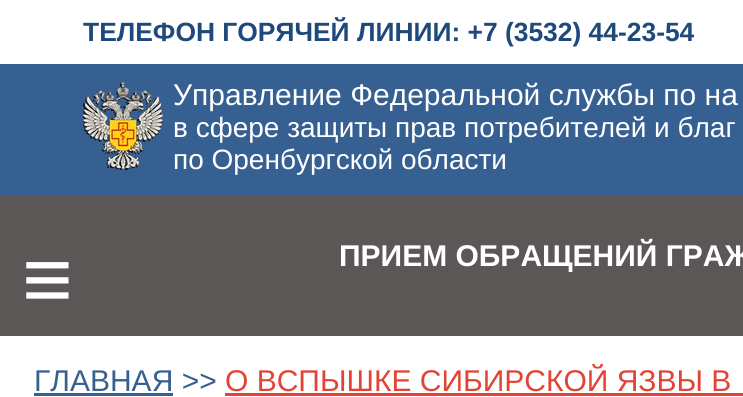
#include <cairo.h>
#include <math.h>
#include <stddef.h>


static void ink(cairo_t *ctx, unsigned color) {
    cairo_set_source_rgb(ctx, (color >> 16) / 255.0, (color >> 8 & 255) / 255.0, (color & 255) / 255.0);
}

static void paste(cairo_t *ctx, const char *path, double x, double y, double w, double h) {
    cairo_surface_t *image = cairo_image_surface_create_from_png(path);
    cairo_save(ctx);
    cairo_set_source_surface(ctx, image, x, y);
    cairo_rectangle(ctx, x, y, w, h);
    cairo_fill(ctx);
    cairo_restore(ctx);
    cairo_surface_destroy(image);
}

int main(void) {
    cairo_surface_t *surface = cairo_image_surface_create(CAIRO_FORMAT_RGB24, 743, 397);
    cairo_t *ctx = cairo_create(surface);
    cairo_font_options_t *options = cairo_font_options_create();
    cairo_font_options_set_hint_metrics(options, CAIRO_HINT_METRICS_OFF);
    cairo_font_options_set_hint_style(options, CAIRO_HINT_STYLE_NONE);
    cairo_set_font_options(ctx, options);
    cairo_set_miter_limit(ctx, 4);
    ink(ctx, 0xFFFFFF);
    cairo_paint(ctx);
    cairo_save(ctx);
    cairo_rectangle(ctx, 83, 0, 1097, 64);
    cairo_clip(ctx);
    cairo_select_font_face(ctx, "Liberation Sans", CAIRO_FONT_SLANT_NORMAL, CAIRO_FONT_WEIGHT_BOLD);
    cairo_set_font_size(ctx, 26.4);
    ink(ctx, 0x1F497D);
    cairo_move_to(ctx, 83, 41);
    cairo_show_text(ctx, "ТЕЛЕФОН ГОРЯЧЕЙ ЛИНИИ: +7 (3532) 44-23-54");
    cairo_restore(ctx);
    ink(ctx, 0x376092);
    cairo_rectangle(ctx, 0, 64, 743, 132);
    cairo_fill(ctx);
    paste(ctx, "media/1.png", 83, 82, 80, 88);
    cairo_select_font_face(ctx, "Liberation Sans", CAIRO_FONT_SLANT_NORMAL, CAIRO_FONT_WEIGHT_NORMAL);
    cairo_set_font_size(ctx, 30);
    ink(ctx, 0xFFFFFF);
    cairo_move_to(ctx, 173, 105);
    cairo_show_text(ctx, "Управление Федеральной службы по на");
    cairo_set_font_size(ctx, 28);
    cairo_move_to(ctx, 173, 137);
    cairo_show_text(ctx, "в сфере защиты прав потребителей и благ");
    cairo_move_to(ctx, 173, 169);
    cairo_show_text(ctx, "по Оренбургской области");
    ink(ctx, 0x5B5757);
    cairo_rectangle(ctx, 0, 196, 743, 140);
    cairo_fill(ctx);
    cairo_select_font_face(ctx, "Liberation Sans", CAIRO_FONT_SLANT_NORMAL, CAIRO_FONT_WEIGHT_BOLD);
    cairo_set_font_size(ctx, 30);
    ink(ctx, 0xFFFFFF);
    cairo_move_to(ctx, 339, 266);
    cairo_show_text(ctx, "ПРИЕМ ОБРАЩЕНИЙ ГРАЖ");
    cairo_select_font_face(ctx, "Liberation Sans", CAIRO_FONT_SLANT_NORMAL, CAIRO_FONT_WEIGHT_NORMAL);
    cairo_set_font_size(ctx, 87);
    cairo_move_to(ctx, 22, 309);
    cairo_show_text(ctx, "≡");
    cairo_set_font_size(ctx, 30);
    ink(ctx, 0x376092);
    cairo_move_to(ctx, 34, 391);
    cairo_show_text(ctx, "ГЛАВНАЯ >>");
    cairo_rectangle(ctx, 34, 393, 139, 3);
    cairo_fill(ctx);
    ink(ctx, 0xE44235);
    cairo_move_to(ctx, 225, 391);
    cairo_show_text(ctx, "О ВСПЫШКЕ СИБИРСКОЙ ЯЗВЫ В");
    cairo_rectangle(ctx, 225, 393, 518, 3);
    cairo_fill(ctx);
    cairo_surface_write_to_png(surface, "image.png");
    cairo_font_options_destroy(options);
    cairo_destroy(ctx);
    cairo_surface_destroy(surface);
    return 0;
}
